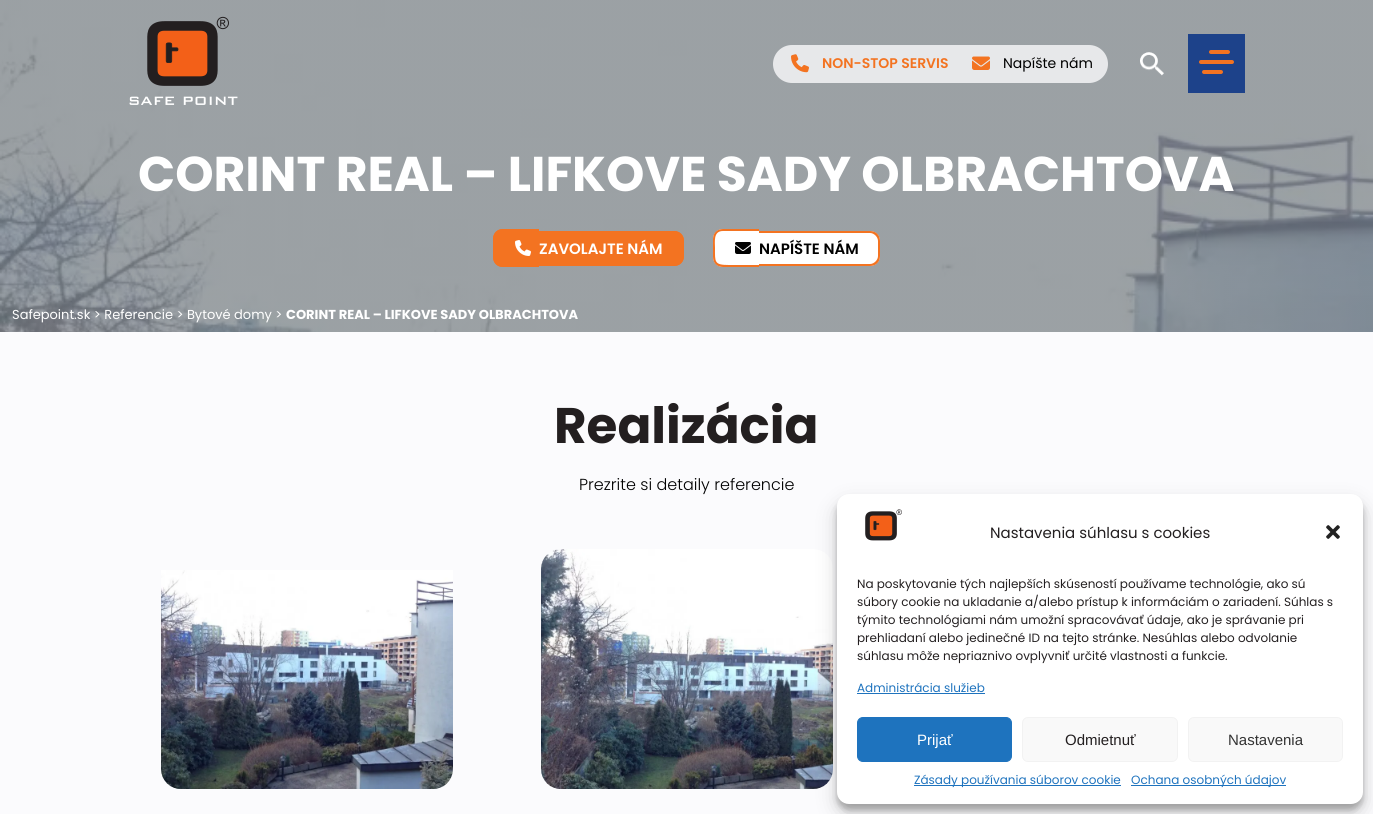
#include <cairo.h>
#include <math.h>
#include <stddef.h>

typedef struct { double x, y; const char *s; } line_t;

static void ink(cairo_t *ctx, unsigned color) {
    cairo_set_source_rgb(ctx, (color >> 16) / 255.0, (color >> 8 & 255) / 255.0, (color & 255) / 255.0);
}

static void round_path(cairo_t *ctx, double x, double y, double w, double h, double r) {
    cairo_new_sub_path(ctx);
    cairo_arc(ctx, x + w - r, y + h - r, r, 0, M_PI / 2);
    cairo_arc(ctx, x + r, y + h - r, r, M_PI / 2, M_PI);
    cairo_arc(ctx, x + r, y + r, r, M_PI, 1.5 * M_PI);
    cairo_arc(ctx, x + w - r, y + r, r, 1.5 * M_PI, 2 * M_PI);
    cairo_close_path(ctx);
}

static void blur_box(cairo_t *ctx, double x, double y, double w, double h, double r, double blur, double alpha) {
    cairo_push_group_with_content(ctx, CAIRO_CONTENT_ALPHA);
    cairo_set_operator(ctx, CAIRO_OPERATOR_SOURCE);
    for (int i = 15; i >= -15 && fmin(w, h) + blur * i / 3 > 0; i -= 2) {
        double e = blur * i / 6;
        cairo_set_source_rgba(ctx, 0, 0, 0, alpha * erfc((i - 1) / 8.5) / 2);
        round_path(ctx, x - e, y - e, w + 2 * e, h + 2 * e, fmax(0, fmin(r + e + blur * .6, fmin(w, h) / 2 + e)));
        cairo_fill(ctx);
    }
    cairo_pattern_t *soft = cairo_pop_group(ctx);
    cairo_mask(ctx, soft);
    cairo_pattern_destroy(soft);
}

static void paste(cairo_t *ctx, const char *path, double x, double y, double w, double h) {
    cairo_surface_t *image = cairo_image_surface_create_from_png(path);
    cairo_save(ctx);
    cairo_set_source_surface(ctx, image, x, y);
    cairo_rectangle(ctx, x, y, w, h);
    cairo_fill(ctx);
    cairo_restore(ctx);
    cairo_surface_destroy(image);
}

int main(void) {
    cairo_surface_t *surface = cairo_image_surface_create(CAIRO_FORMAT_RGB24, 1373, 814);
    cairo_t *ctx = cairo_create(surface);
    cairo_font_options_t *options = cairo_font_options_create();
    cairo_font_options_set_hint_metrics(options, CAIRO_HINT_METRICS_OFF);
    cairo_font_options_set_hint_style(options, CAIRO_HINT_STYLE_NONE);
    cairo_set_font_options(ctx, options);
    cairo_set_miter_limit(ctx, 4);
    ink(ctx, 0xFBFBFD);
    cairo_paint(ctx);
    paste(ctx, "media/5.png", 0, 0, 1373, 332);
    paste(ctx, "media/1.png", 129, 16, 109, 89);
    ink(ctx, 0xE7E8EA);
    round_path(ctx, 773, 45, 335, 38, 19);
    cairo_fill(ctx);
    paste(ctx, "media/2.png", 791, 54, 18, 19);
    cairo_select_font_face(ctx, "Poppins SemiBold", CAIRO_FONT_SLANT_NORMAL, CAIRO_FONT_WEIGHT_NORMAL);
    cairo_set_font_size(ctx, 14);
    ink(ctx, 0xF37321);
    cairo_move_to(ctx, 822, 68);
    cairo_show_text(ctx, "NON-STOP SERVIS");
    paste(ctx, "media/3.png", 972, 56, 18, 14);
    cairo_select_font_face(ctx, "Poppins", CAIRO_FONT_SLANT_NORMAL, CAIRO_FONT_WEIGHT_NORMAL);
    ink(ctx, 0x000000);
    cairo_move_to(ctx, 1003, 68);
    cairo_show_text(ctx, "Napíšte nám");
    paste(ctx, "media/4.png", 1140, 52, 24, 24);
    ink(ctx, 0x1D428A);
    cairo_rectangle(ctx, 1188, 34, 57, 59);
    cairo_fill(ctx);
    ink(ctx, 0xF37321);
    round_path(ctx, 1199, 60, 35, 4, 2);
    cairo_fill(ctx);
    round_path(ctx, 1209, 50, 21, 4, 2);
    cairo_fill(ctx);
    round_path(ctx, 1202, 70, 21, 4, 2);
    cairo_fill(ctx);
    cairo_select_font_face(ctx, "Poppins", CAIRO_FONT_SLANT_NORMAL, CAIRO_FONT_WEIGHT_BOLD);
    cairo_set_font_size(ctx, 48.8);
    ink(ctx, 0xFFFFFF);
    cairo_move_to(ctx, 138, 191);
    cairo_show_text(ctx, "CORINT REAL – LIFKOVE SADY OLBRACHTOVA");
    ink(ctx, 0xF37321);
    cairo_new_path(ctx);
    cairo_move_to(ctx, 503, 229);
    cairo_line_to(ctx, 539, 229);
    cairo_line_to(ctx, 539, 267);
    cairo_line_to(ctx, 503, 267);
    cairo_curve_to(ctx, 497.5, 267, 493, 262.5, 493, 257);
    cairo_line_to(ctx, 493, 239);
    cairo_curve_to(ctx, 493, 233.5, 497.5, 229, 503, 229);
    cairo_close_path(ctx);
    cairo_fill(ctx);
    cairo_set_fill_rule(ctx, CAIRO_FILL_RULE_EVEN_ODD);
    cairo_new_path(ctx);
    cairo_move_to(ctx, 503, 229);
    cairo_line_to(ctx, 539, 229);
    cairo_line_to(ctx, 539, 267);
    cairo_line_to(ctx, 503, 267);
    cairo_curve_to(ctx, 497, 267, 493, 263, 493, 257);
    cairo_line_to(ctx, 493, 239);
    cairo_curve_to(ctx, 493, 233, 497, 229, 503, 229);
    cairo_close_path(ctx);
    cairo_move_to(ctx, 503, 231);
    cairo_line_to(ctx, 539, 231);
    cairo_line_to(ctx, 539, 265);
    cairo_line_to(ctx, 509, 265);
    cairo_curve_to(ctx, 494, 265, 495, 262, 495, 248);
    cairo_curve_to(ctx, 495, 242, 493, 231, 503, 231);
    cairo_close_path(ctx);
    cairo_fill(ctx);
    cairo_new_path(ctx);
    cairo_move_to(ctx, 539, 231);
    cairo_line_to(ctx, 674, 231);
    cairo_curve_to(ctx, 679.5, 231, 684, 235.5, 684, 241);
    cairo_line_to(ctx, 684, 256);
    cairo_curve_to(ctx, 684, 261.5, 679.5, 266, 674, 266);
    cairo_line_to(ctx, 539, 266);
    cairo_close_path(ctx);
    cairo_fill(ctx);
    cairo_new_path(ctx);
    cairo_move_to(ctx, 539, 231);
    cairo_line_to(ctx, 674, 231);
    cairo_curve_to(ctx, 680, 231, 684, 235, 684, 241);
    cairo_line_to(ctx, 684, 256);
    cairo_curve_to(ctx, 684, 262, 680, 266, 674, 266);
    cairo_line_to(ctx, 539, 266);
    cairo_close_path(ctx);
    cairo_move_to(ctx, 539, 233);
    cairo_line_to(ctx, 674, 233);
    cairo_curve_to(ctx, 678, 233, 682, 237, 682, 241);
    cairo_line_to(ctx, 682, 256);
    cairo_curve_to(ctx, 682, 260, 678, 264, 674, 264);
    cairo_line_to(ctx, 539, 264);
    cairo_close_path(ctx);
    cairo_fill(ctx);
    paste(ctx, "media/6.png", 515, 240, 16, 16);
    cairo_select_font_face(ctx, "Poppins SemiBold", CAIRO_FONT_SLANT_NORMAL, CAIRO_FONT_WEIGHT_NORMAL);
    cairo_set_font_size(ctx, 15);
    ink(ctx, 0xFFFFFF);
    cairo_move_to(ctx, 539, 254);
    cairo_show_text(ctx, "ZAVOLAJTE NÁM");
    cairo_new_path(ctx);
    cairo_move_to(ctx, 723, 229);
    cairo_line_to(ctx, 759, 229);
    cairo_line_to(ctx, 759, 267);
    cairo_line_to(ctx, 723, 267);
    cairo_curve_to(ctx, 717.5, 267, 713, 262.5, 713, 257);
    cairo_line_to(ctx, 713, 239);
    cairo_curve_to(ctx, 713, 233.5, 717.5, 229, 723, 229);
    cairo_close_path(ctx);
    cairo_fill(ctx);
    ink(ctx, 0xF37321);
    cairo_new_path(ctx);
    cairo_move_to(ctx, 723, 229);
    cairo_line_to(ctx, 759, 229);
    cairo_line_to(ctx, 759, 267);
    cairo_line_to(ctx, 723, 267);
    cairo_curve_to(ctx, 717, 267, 713, 263, 713, 257);
    cairo_line_to(ctx, 713, 239);
    cairo_curve_to(ctx, 713, 233, 717, 229, 723, 229);
    cairo_close_path(ctx);
    cairo_move_to(ctx, 723, 231);
    cairo_line_to(ctx, 759, 231);
    cairo_line_to(ctx, 759, 265);
    cairo_line_to(ctx, 729, 265);
    cairo_curve_to(ctx, 714, 265, 715, 262, 715, 248);
    cairo_curve_to(ctx, 715, 242, 713, 231, 723, 231);
    cairo_close_path(ctx);
    cairo_fill(ctx);
    ink(ctx, 0xFFFFFF);
    cairo_new_path(ctx);
    cairo_move_to(ctx, 759, 231);
    cairo_line_to(ctx, 870, 231);
    cairo_curve_to(ctx, 875.5, 231, 880, 235.5, 880, 241);
    cairo_line_to(ctx, 880, 256);
    cairo_curve_to(ctx, 880, 261.5, 875.5, 266, 870, 266);
    cairo_line_to(ctx, 759, 266);
    cairo_close_path(ctx);
    cairo_fill(ctx);
    ink(ctx, 0xF37321);
    cairo_new_path(ctx);
    cairo_move_to(ctx, 759, 231);
    cairo_line_to(ctx, 870, 231);
    cairo_curve_to(ctx, 876, 231, 880, 235, 880, 241);
    cairo_line_to(ctx, 880, 256);
    cairo_curve_to(ctx, 880, 262, 876, 266, 870, 266);
    cairo_line_to(ctx, 759, 266);
    cairo_close_path(ctx);
    cairo_move_to(ctx, 759, 233);
    cairo_line_to(ctx, 870, 233);
    cairo_curve_to(ctx, 874, 233, 878, 237, 878, 241);
    cairo_line_to(ctx, 878, 256);
    cairo_curve_to(ctx, 878, 260, 874, 264, 870, 264);
    cairo_line_to(ctx, 759, 264);
    cairo_close_path(ctx);
    cairo_fill(ctx);
    paste(ctx, "media/7.png", 735, 242, 16, 12);
    ink(ctx, 0x000000);
    cairo_move_to(ctx, 759, 254);
    cairo_show_text(ctx, "NAPÍŠTE NÁM");
    cairo_select_font_face(ctx, "Poppins", CAIRO_FONT_SLANT_NORMAL, CAIRO_FONT_WEIGHT_NORMAL);
    cairo_set_font_size(ctx, 13);
    ink(ctx, 0xFFFFFF);
    cairo_move_to(ctx, 12, 319);
    cairo_show_text(ctx, "Safepoint.sk > Referencie > Bytové domy >");
    cairo_select_font_face(ctx, "Poppins", CAIRO_FONT_SLANT_NORMAL, CAIRO_FONT_WEIGHT_BOLD);
    cairo_move_to(ctx, 286, 319);
    cairo_show_text(ctx, "CORINT REAL – LIFKOVE SADY OLBRACHTOVA");
    cairo_set_font_size(ctx, 50);
    ink(ctx, 0x231F20);
    cairo_move_to(ctx, 554, 443);
    cairo_show_text(ctx, "Realizácia");
    cairo_select_font_face(ctx, "Poppins Light", CAIRO_FONT_SLANT_NORMAL, CAIRO_FONT_WEIGHT_NORMAL);
    cairo_set_font_size(ctx, 16);
    ink(ctx, 0x000000);
    cairo_move_to(ctx, 579, 490);
    cairo_show_text(ctx, "Prezrite si detaily referencie");
    paste(ctx, "media/8.png", 161, 570, 292, 219);
    paste(ctx, "media/9.png", 541, 549, 292, 240);
    ink(ctx, 0x000000);
    blur_box(ctx, 837, 500, 526, 310, 12, 3, 0.23);
    blur_box(ctx, 837, 504, 526, 310, 12, 10, 0.19);
    ink(ctx, 0xFFFFFF);
    round_path(ctx, 837, 494, 526, 310, 12);
    cairo_fill(ctx);
    paste(ctx, "media/10.png", 865, 509, 37, 32);
    cairo_select_font_face(ctx, "Poppins", CAIRO_FONT_SLANT_NORMAL, CAIRO_FONT_WEIGHT_NORMAL);
    cairo_set_font_size(ctx, 15);
    ink(ctx, 0x231F20);
    cairo_move_to(ctx, 990, 538);
    cairo_show_text(ctx, "Nastavenia súhlasu s cookies");
    paste(ctx, "media/11.png", 1326, 525, 14, 14);
    cairo_set_font_size(ctx, 12);
    {
        static const line_t items[] = {
            {857, 588, "Na poskytovanie tých najlepších skúseností používame technológie, ako sú"},
            {857, 606, "súbory cookie na ukladanie a/alebo prístup k informáciám o zariadení. Súhlas s"},
            {857, 624, "týmito technológiami nám umožní spracovávať údaje, ako je správanie pri"},
            {857, 642, "prehliadaní alebo jedinečné ID na tejto stránke. Nesúhlas alebo odvolanie"},
            {857, 660, "súhlasu môže nepriaznivo ovplyvniť určité vlastnosti a funkcie."},
        };
        for (size_t i = 0; i < sizeof items / sizeof *items; i++) {
            cairo_move_to(ctx, items[i].x, items[i].y);
            cairo_show_text(ctx, items[i].s);
        }
    }
    ink(ctx, 0x1E73BE);
    cairo_move_to(ctx, 857, 692);
    cairo_show_text(ctx, "Administrácia služieb");
    cairo_rectangle(ctx, 857, 693, 128, 1);
    cairo_fill(ctx);
    round_path(ctx, 857.5, 717.5, 154, 44, 5.5);
    cairo_fill_preserve(ctx);
    cairo_set_line_width(ctx, 1);
    cairo_stroke(ctx);
    cairo_select_font_face(ctx, "Liberation Sans", CAIRO_FONT_SLANT_NORMAL, CAIRO_FONT_WEIGHT_NORMAL);
    cairo_set_font_size(ctx, 15);
    ink(ctx, 0xFFFFFF);
    cairo_move_to(ctx, 917, 745);
    cairo_show_text(ctx, "Prijať");
    ink(ctx, 0xF9F9F9);
    round_path(ctx, 1022.5, 717.5, 155, 44, 5.5);
    cairo_fill_preserve(ctx);
    ink(ctx, 0xF2F2F2);
    cairo_stroke(ctx);
    ink(ctx, 0x231F20);
    cairo_move_to(ctx, 1065, 745);
    cairo_show_text(ctx, "Odmietnuť");
    ink(ctx, 0xF9F9F9);
    round_path(ctx, 1188.5, 717.5, 154, 44, 5.5);
    cairo_fill_preserve(ctx);
    ink(ctx, 0xF2F2F2);
    cairo_stroke(ctx);
    ink(ctx, 0x333333);
    cairo_move_to(ctx, 1228, 745);
    cairo_show_text(ctx, "Nastavenia");
    ink(ctx, 0x1E73BE);
    cairo_rectangle(ctx, 914, 785, 207, 1);
    cairo_fill(ctx);
    cairo_select_font_face(ctx, "Poppins", CAIRO_FONT_SLANT_NORMAL, CAIRO_FONT_WEIGHT_NORMAL);
    cairo_set_font_size(ctx, 12);
    cairo_move_to(ctx, 914, 784);
    cairo_show_text(ctx, "Zásady používania súborov cookie");
    cairo_rectangle(ctx, 1131, 785, 155, 1);
    cairo_fill(ctx);
    cairo_move_to(ctx, 1131, 784);
    cairo_show_text(ctx, "Ochana osobných údajov");
    cairo_surface_write_to_png(surface, "image.png");
    cairo_font_options_destroy(options);
    cairo_destroy(ctx);
    cairo_surface_destroy(surface);
    return 0;
}
